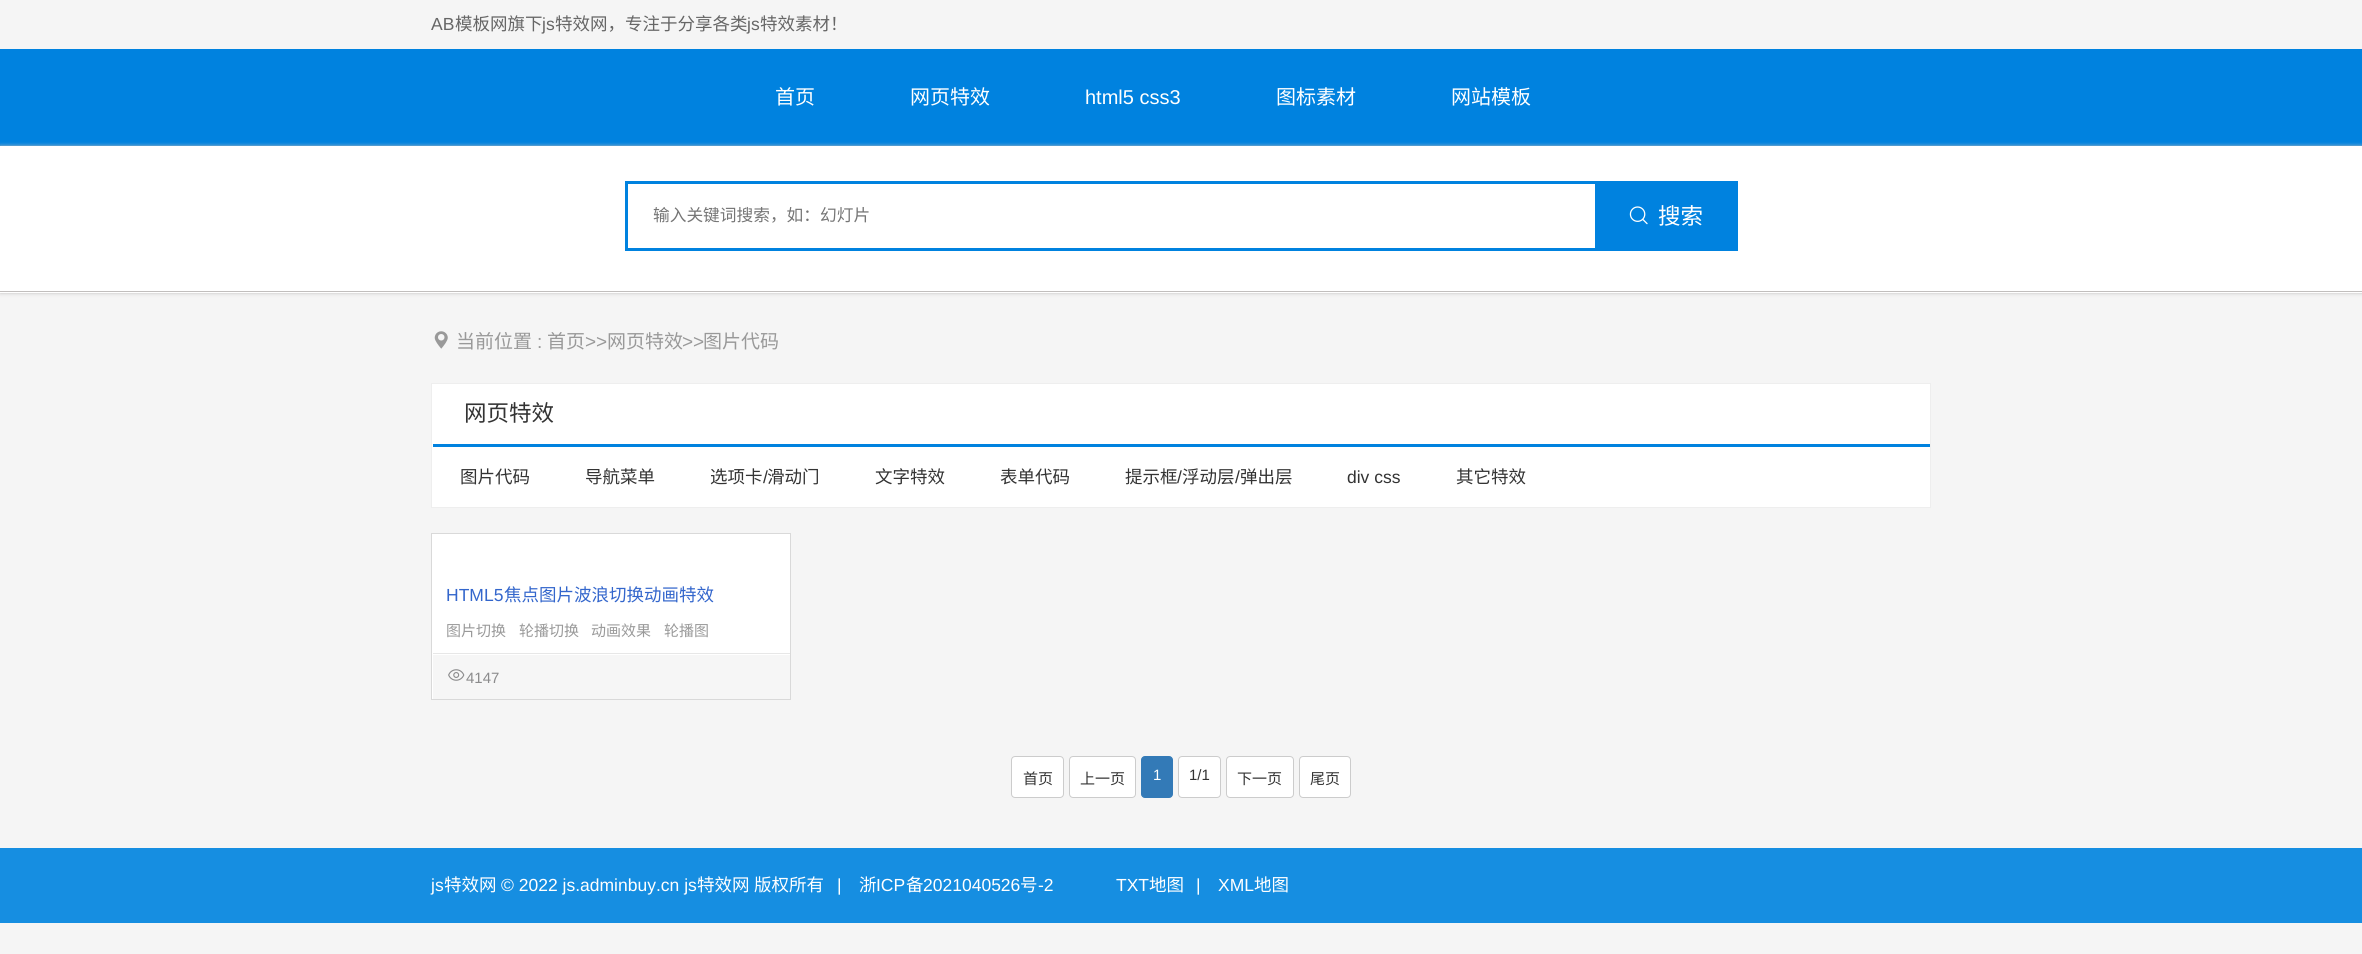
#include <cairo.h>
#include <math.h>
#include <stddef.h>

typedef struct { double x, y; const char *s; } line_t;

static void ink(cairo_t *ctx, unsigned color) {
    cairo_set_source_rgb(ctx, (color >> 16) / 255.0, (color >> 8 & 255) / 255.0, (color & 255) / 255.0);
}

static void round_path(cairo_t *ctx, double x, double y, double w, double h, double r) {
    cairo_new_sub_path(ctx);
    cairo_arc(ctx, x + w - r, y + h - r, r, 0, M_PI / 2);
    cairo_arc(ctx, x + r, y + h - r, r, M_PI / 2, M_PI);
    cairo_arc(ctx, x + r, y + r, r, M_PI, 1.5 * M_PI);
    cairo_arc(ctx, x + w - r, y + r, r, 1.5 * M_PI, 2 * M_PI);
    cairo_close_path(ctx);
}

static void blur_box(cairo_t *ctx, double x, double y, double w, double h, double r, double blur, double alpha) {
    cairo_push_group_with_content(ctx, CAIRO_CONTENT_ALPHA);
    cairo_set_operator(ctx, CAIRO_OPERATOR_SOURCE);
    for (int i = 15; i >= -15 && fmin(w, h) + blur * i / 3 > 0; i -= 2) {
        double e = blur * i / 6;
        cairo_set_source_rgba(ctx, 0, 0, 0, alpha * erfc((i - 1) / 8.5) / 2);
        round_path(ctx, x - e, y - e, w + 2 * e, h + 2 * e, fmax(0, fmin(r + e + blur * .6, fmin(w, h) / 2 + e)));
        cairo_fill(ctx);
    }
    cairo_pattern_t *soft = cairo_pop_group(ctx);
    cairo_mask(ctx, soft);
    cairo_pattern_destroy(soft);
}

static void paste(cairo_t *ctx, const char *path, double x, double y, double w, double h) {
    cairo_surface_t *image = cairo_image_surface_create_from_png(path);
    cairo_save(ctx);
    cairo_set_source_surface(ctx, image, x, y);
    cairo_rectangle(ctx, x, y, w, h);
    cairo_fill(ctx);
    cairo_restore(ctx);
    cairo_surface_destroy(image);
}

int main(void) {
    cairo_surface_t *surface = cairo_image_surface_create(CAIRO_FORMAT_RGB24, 2362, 954);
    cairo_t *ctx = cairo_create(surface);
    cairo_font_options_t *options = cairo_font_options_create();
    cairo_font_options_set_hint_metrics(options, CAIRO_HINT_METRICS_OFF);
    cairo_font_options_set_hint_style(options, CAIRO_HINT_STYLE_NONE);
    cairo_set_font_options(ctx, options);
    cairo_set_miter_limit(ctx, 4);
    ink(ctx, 0xF5F5F5);
    cairo_paint(ctx);
    cairo_select_font_face(ctx, "Liberation Sans", CAIRO_FONT_SLANT_NORMAL, CAIRO_FONT_WEIGHT_NORMAL);
    cairo_set_font_size(ctx, 17.5);
    ink(ctx, 0x666666);
    cairo_move_to(ctx, 431, 30);
    cairo_show_text(ctx, "AB");
    cairo_select_font_face(ctx, "Noto Sans CJK SC", CAIRO_FONT_SLANT_NORMAL, CAIRO_FONT_WEIGHT_NORMAL);
    cairo_move_to(ctx, 455, 30);
    cairo_show_text(ctx, "模板网旗下");
    cairo_select_font_face(ctx, "Liberation Sans", CAIRO_FONT_SLANT_NORMAL, CAIRO_FONT_WEIGHT_NORMAL);
    cairo_move_to(ctx, 542, 30);
    cairo_show_text(ctx, "js");
    cairo_select_font_face(ctx, "Noto Sans CJK SC", CAIRO_FONT_SLANT_NORMAL, CAIRO_FONT_WEIGHT_NORMAL);
    cairo_move_to(ctx, 555, 30);
    cairo_show_text(ctx, "特效网，专注于分享各类");
    cairo_select_font_face(ctx, "Liberation Sans", CAIRO_FONT_SLANT_NORMAL, CAIRO_FONT_WEIGHT_NORMAL);
    cairo_move_to(ctx, 747, 30);
    cairo_show_text(ctx, "js");
    cairo_select_font_face(ctx, "Noto Sans CJK SC", CAIRO_FONT_SLANT_NORMAL, CAIRO_FONT_WEIGHT_NORMAL);
    cairo_move_to(ctx, 760, 30);
    cairo_show_text(ctx, "特效素材！");
    ink(ctx, 0x0082DF);
    cairo_rectangle(ctx, 0, 49, 2362, 97);
    cairo_fill(ctx);
    cairo_set_font_size(ctx, 20);
    ink(ctx, 0xFFFFFF);
    cairo_move_to(ctx, 775, 104);
    cairo_show_text(ctx, "首页");
    cairo_move_to(ctx, 910, 104);
    cairo_show_text(ctx, "网页特效");
    cairo_select_font_face(ctx, "Liberation Sans", CAIRO_FONT_SLANT_NORMAL, CAIRO_FONT_WEIGHT_NORMAL);
    cairo_move_to(ctx, 1085, 104);
    cairo_show_text(ctx, "html5 css3");
    cairo_select_font_face(ctx, "Noto Sans CJK SC", CAIRO_FONT_SLANT_NORMAL, CAIRO_FONT_WEIGHT_NORMAL);
    cairo_move_to(ctx, 1276, 104);
    cairo_show_text(ctx, "图标素材");
    cairo_move_to(ctx, 1451, 104);
    cairo_show_text(ctx, "网站模板");
    ink(ctx, 0xC1BEBD);
    blur_box(ctx, 0, 146, 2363, 147, 0, 2, 1);
    ink(ctx, 0xFFFFFF);
    cairo_rectangle(ctx, 0, 146, 2362, 147);
    cairo_fill(ctx);
    ink(ctx, 0xC1BEBD);
    cairo_rectangle(ctx, 0, 291, 2362, 1);
    cairo_fill(ctx);
    cairo_rectangle(ctx, 626.5, 182.5, 1110, 67);
    ink(ctx, 0x0082DF);
    cairo_set_line_width(ctx, 3);
    cairo_stroke(ctx);
    cairo_set_font_size(ctx, 16.7);
    ink(ctx, 0x757575);
    cairo_move_to(ctx, 653, 221);
    cairo_show_text(ctx, "输入关键词搜索，如：幻灯片");
    ink(ctx, 0x0082DF);
    cairo_rectangle(ctx, 1595, 184, 140, 64);
    cairo_fill(ctx);
    paste(ctx, "media/1.png", 1629, 206, 19, 19);
    cairo_set_font_size(ctx, 22.5);
    ink(ctx, 0xFFFFFF);
    cairo_move_to(ctx, 1658, 224);
    cairo_show_text(ctx, "搜索");
    paste(ctx, "media/2.png", 434, 331, 14, 18);
    cairo_set_font_size(ctx, 19);
    ink(ctx, 0x999999);
    cairo_move_to(ctx, 456, 348);
    cairo_show_text(ctx, "当前位置");
    cairo_select_font_face(ctx, "Liberation Sans", CAIRO_FONT_SLANT_NORMAL, CAIRO_FONT_WEIGHT_NORMAL);
    cairo_move_to(ctx, 537, 348);
    cairo_show_text(ctx, ":");
    cairo_select_font_face(ctx, "Noto Sans CJK SC", CAIRO_FONT_SLANT_NORMAL, CAIRO_FONT_WEIGHT_NORMAL);
    cairo_move_to(ctx, 547, 348);
    cairo_show_text(ctx, "首页");
    cairo_select_font_face(ctx, "Liberation Sans", CAIRO_FONT_SLANT_NORMAL, CAIRO_FONT_WEIGHT_NORMAL);
    cairo_move_to(ctx, 585, 348);
    cairo_show_text(ctx, ">>");
    cairo_select_font_face(ctx, "Noto Sans CJK SC", CAIRO_FONT_SLANT_NORMAL, CAIRO_FONT_WEIGHT_NORMAL);
    cairo_move_to(ctx, 607, 348);
    cairo_show_text(ctx, "网页特效");
    cairo_select_font_face(ctx, "Liberation Sans", CAIRO_FONT_SLANT_NORMAL, CAIRO_FONT_WEIGHT_NORMAL);
    cairo_move_to(ctx, 682, 348);
    cairo_show_text(ctx, ">>");
    cairo_select_font_face(ctx, "Noto Sans CJK SC", CAIRO_FONT_SLANT_NORMAL, CAIRO_FONT_WEIGHT_NORMAL);
    cairo_move_to(ctx, 703, 348);
    cairo_show_text(ctx, "图片代码");
    ink(ctx, 0xFFFFFF);
    cairo_rectangle(ctx, 431.5, 383.5, 1499, 124);
    cairo_fill_preserve(ctx);
    ink(ctx, 0xEEEEEE);
    cairo_set_line_width(ctx, 1);
    cairo_stroke(ctx);
    ink(ctx, 0x0082DF);
    cairo_rectangle(ctx, 433, 444, 1497, 3);
    cairo_fill(ctx);
    cairo_set_font_size(ctx, 22.5);
    ink(ctx, 0x333333);
    cairo_move_to(ctx, 464, 421);
    cairo_show_text(ctx, "网页特效");
    cairo_set_font_size(ctx, 17.5);
    {
        static const line_t items[] = {
            {460, 483, "图片代码"},
            {585, 483, "导航菜单"},
            {710, 483, "选项卡"},
        };
        for (size_t i = 0; i < sizeof items / sizeof *items; i++) {
            cairo_move_to(ctx, items[i].x, items[i].y);
            cairo_show_text(ctx, items[i].s);
        }
    }
    cairo_select_font_face(ctx, "Liberation Sans", CAIRO_FONT_SLANT_NORMAL, CAIRO_FONT_WEIGHT_NORMAL);
    cairo_move_to(ctx, 763, 483);
    cairo_show_text(ctx, "/");
    cairo_select_font_face(ctx, "Noto Sans CJK SC", CAIRO_FONT_SLANT_NORMAL, CAIRO_FONT_WEIGHT_NORMAL);
    {
        static const line_t items[] = {
            {767, 483, "滑动门"},
            {875, 483, "文字特效"},
            {1000, 483, "表单代码"},
            {1125, 483, "提示框"},
        };
        for (size_t i = 0; i < sizeof items / sizeof *items; i++) {
            cairo_move_to(ctx, items[i].x, items[i].y);
            cairo_show_text(ctx, items[i].s);
        }
    }
    cairo_select_font_face(ctx, "Liberation Sans", CAIRO_FONT_SLANT_NORMAL, CAIRO_FONT_WEIGHT_NORMAL);
    cairo_move_to(ctx, 1177, 483);
    cairo_show_text(ctx, "/");
    cairo_select_font_face(ctx, "Noto Sans CJK SC", CAIRO_FONT_SLANT_NORMAL, CAIRO_FONT_WEIGHT_NORMAL);
    cairo_move_to(ctx, 1182, 483);
    cairo_show_text(ctx, "浮动层");
    cairo_select_font_face(ctx, "Liberation Sans", CAIRO_FONT_SLANT_NORMAL, CAIRO_FONT_WEIGHT_NORMAL);
    cairo_move_to(ctx, 1235, 483);
    cairo_show_text(ctx, "/");
    cairo_select_font_face(ctx, "Noto Sans CJK SC", CAIRO_FONT_SLANT_NORMAL, CAIRO_FONT_WEIGHT_NORMAL);
    cairo_move_to(ctx, 1240, 483);
    cairo_show_text(ctx, "弹出层");
    cairo_select_font_face(ctx, "Liberation Sans", CAIRO_FONT_SLANT_NORMAL, CAIRO_FONT_WEIGHT_NORMAL);
    cairo_move_to(ctx, 1347, 483);
    cairo_show_text(ctx, "div css");
    cairo_select_font_face(ctx, "Noto Sans CJK SC", CAIRO_FONT_SLANT_NORMAL, CAIRO_FONT_WEIGHT_NORMAL);
    cairo_move_to(ctx, 1456, 483);
    cairo_show_text(ctx, "其它特效");
    ink(ctx, 0xFFFFFF);
    cairo_rectangle(ctx, 431.5, 533.5, 359, 166);
    cairo_fill_preserve(ctx);
    ink(ctx, 0xD9D9D9);
    cairo_stroke(ctx);
    cairo_select_font_face(ctx, "Liberation Sans", CAIRO_FONT_SLANT_NORMAL, CAIRO_FONT_WEIGHT_NORMAL);
    ink(ctx, 0x3366CC);
    cairo_move_to(ctx, 446, 601);
    cairo_show_text(ctx, "HTML5");
    cairo_select_font_face(ctx, "Noto Sans CJK SC", CAIRO_FONT_SLANT_NORMAL, CAIRO_FONT_WEIGHT_NORMAL);
    cairo_move_to(ctx, 504, 601);
    cairo_show_text(ctx, "焦点图片波浪切换动画特效");
    cairo_set_font_size(ctx, 15);
    ink(ctx, 0x999999);
    {
        static const line_t items[] = {
            {446, 636, "图片切换"},
            {519, 636, "轮播切换"},
            {591, 636, "动画效果"},
            {664, 636, "轮播图"},
        };
        for (size_t i = 0; i < sizeof items / sizeof *items; i++) {
            cairo_move_to(ctx, items[i].x, items[i].y);
            cairo_show_text(ctx, items[i].s);
        }
    }
    ink(ctx, 0xF6F6F6);
    cairo_rectangle(ctx, 433, 655, 357, 44);
    cairo_fill(ctx);
    ink(ctx, 0xE7E7E7);
    cairo_rectangle(ctx, 433, 653, 357, 1);
    cairo_fill(ctx);
    paste(ctx, "media/3.png", 448, 669, 17, 12);
    cairo_select_font_face(ctx, "Liberation Sans", CAIRO_FONT_SLANT_NORMAL, CAIRO_FONT_WEIGHT_NORMAL);
    ink(ctx, 0x8B8B8C);
    cairo_move_to(ctx, 466, 683);
    cairo_show_text(ctx, "4147");
    ink(ctx, 0xFFFFFF);
    round_path(ctx, 1011.5, 756.5, 52, 41, 3.5);
    cairo_fill_preserve(ctx);
    ink(ctx, 0xCCCCCC);
    cairo_stroke(ctx);
    cairo_select_font_face(ctx, "Noto Sans CJK SC", CAIRO_FONT_SLANT_NORMAL, CAIRO_FONT_WEIGHT_NORMAL);
    ink(ctx, 0x333333);
    cairo_move_to(ctx, 1023, 784);
    cairo_show_text(ctx, "首页");
    ink(ctx, 0xFFFFFF);
    round_path(ctx, 1069.5, 756.5, 66, 41, 3.5);
    cairo_fill_preserve(ctx);
    ink(ctx, 0xCCCCCC);
    cairo_stroke(ctx);
    ink(ctx, 0x333333);
    cairo_move_to(ctx, 1080, 784);
    cairo_show_text(ctx, "上一页");
    ink(ctx, 0x337AB7);
    round_path(ctx, 1141.5, 756.5, 31, 41, 3.5);
    cairo_fill_preserve(ctx);
    cairo_stroke(ctx);
    cairo_select_font_face(ctx, "Liberation Sans", CAIRO_FONT_SLANT_NORMAL, CAIRO_FONT_WEIGHT_NORMAL);
    ink(ctx, 0xFFFFFF);
    cairo_move_to(ctx, 1153, 780);
    cairo_show_text(ctx, "1");
    round_path(ctx, 1178.5, 756.5, 42, 41, 3.5);
    cairo_fill_preserve(ctx);
    ink(ctx, 0xCCCCCC);
    cairo_stroke(ctx);
    ink(ctx, 0x333333);
    cairo_move_to(ctx, 1189, 780);
    cairo_show_text(ctx, "1/1");
    ink(ctx, 0xFFFFFF);
    round_path(ctx, 1226.5, 756.5, 67, 41, 3.5);
    cairo_fill_preserve(ctx);
    ink(ctx, 0xCCCCCC);
    cairo_stroke(ctx);
    cairo_select_font_face(ctx, "Noto Sans CJK SC", CAIRO_FONT_SLANT_NORMAL, CAIRO_FONT_WEIGHT_NORMAL);
    ink(ctx, 0x333333);
    cairo_move_to(ctx, 1237, 784);
    cairo_show_text(ctx, "下一页");
    ink(ctx, 0xFFFFFF);
    round_path(ctx, 1299.5, 756.5, 51, 41, 3.5);
    cairo_fill_preserve(ctx);
    ink(ctx, 0xCCCCCC);
    cairo_stroke(ctx);
    ink(ctx, 0x333333);
    cairo_move_to(ctx, 1310, 784);
    cairo_show_text(ctx, "尾页");
    ink(ctx, 0x168EE1);
    cairo_rectangle(ctx, 0, 848, 2362, 75);
    cairo_fill(ctx);
    cairo_select_font_face(ctx, "Liberation Sans", CAIRO_FONT_SLANT_NORMAL, CAIRO_FONT_WEIGHT_NORMAL);
    cairo_set_font_size(ctx, 17.5);
    ink(ctx, 0xFFFFFF);
    cairo_move_to(ctx, 431, 891);
    cairo_show_text(ctx, "js");
    cairo_select_font_face(ctx, "Noto Sans CJK SC", CAIRO_FONT_SLANT_NORMAL, CAIRO_FONT_WEIGHT_NORMAL);
    cairo_move_to(ctx, 444, 891);
    cairo_show_text(ctx, "特效网");
    cairo_select_font_face(ctx, "Liberation Sans", CAIRO_FONT_SLANT_NORMAL, CAIRO_FONT_WEIGHT_NORMAL);
    cairo_move_to(ctx, 501, 891);
    cairo_show_text(ctx, "© 2022 js.adminbuy.cn js");
    cairo_select_font_face(ctx, "Noto Sans CJK SC", CAIRO_FONT_SLANT_NORMAL, CAIRO_FONT_WEIGHT_NORMAL);
    cairo_move_to(ctx, 697, 891);
    cairo_show_text(ctx, "特效网");
    cairo_move_to(ctx, 754, 891);
    cairo_show_text(ctx, "版权所有");
    cairo_select_font_face(ctx, "Liberation Sans", CAIRO_FONT_SLANT_NORMAL, CAIRO_FONT_WEIGHT_NORMAL);
    cairo_move_to(ctx, 837, 891);
    cairo_show_text(ctx, "|");
    cairo_select_font_face(ctx, "Noto Sans CJK SC", CAIRO_FONT_SLANT_NORMAL, CAIRO_FONT_WEIGHT_NORMAL);
    cairo_move_to(ctx, 859, 891);
    cairo_show_text(ctx, "浙");
    cairo_select_font_face(ctx, "Liberation Sans", CAIRO_FONT_SLANT_NORMAL, CAIRO_FONT_WEIGHT_NORMAL);
    cairo_move_to(ctx, 876, 891);
    cairo_show_text(ctx, "ICP");
    cairo_select_font_face(ctx, "Noto Sans CJK SC", CAIRO_FONT_SLANT_NORMAL, CAIRO_FONT_WEIGHT_NORMAL);
    cairo_move_to(ctx, 906, 891);
    cairo_show_text(ctx, "备");
    cairo_select_font_face(ctx, "Liberation Sans", CAIRO_FONT_SLANT_NORMAL, CAIRO_FONT_WEIGHT_NORMAL);
    cairo_move_to(ctx, 923, 891);
    cairo_show_text(ctx, "2021040526");
    cairo_select_font_face(ctx, "Noto Sans CJK SC", CAIRO_FONT_SLANT_NORMAL, CAIRO_FONT_WEIGHT_NORMAL);
    cairo_move_to(ctx, 1020, 891);
    cairo_show_text(ctx, "号");
    cairo_select_font_face(ctx, "Liberation Sans", CAIRO_FONT_SLANT_NORMAL, CAIRO_FONT_WEIGHT_NORMAL);
    cairo_move_to(ctx, 1038, 891);
    cairo_show_text(ctx, "-2");
    cairo_move_to(ctx, 1116, 891);
    cairo_show_text(ctx, "TXT");
    cairo_select_font_face(ctx, "Noto Sans CJK SC", CAIRO_FONT_SLANT_NORMAL, CAIRO_FONT_WEIGHT_NORMAL);
    cairo_move_to(ctx, 1149, 891);
    cairo_show_text(ctx, "地图");
    cairo_select_font_face(ctx, "Liberation Sans", CAIRO_FONT_SLANT_NORMAL, CAIRO_FONT_WEIGHT_NORMAL);
    cairo_move_to(ctx, 1196, 891);
    cairo_show_text(ctx, "|");
    cairo_move_to(ctx, 1218, 891);
    cairo_show_text(ctx, "XML");
    cairo_select_font_face(ctx, "Noto Sans CJK SC", CAIRO_FONT_SLANT_NORMAL, CAIRO_FONT_WEIGHT_NORMAL);
    cairo_move_to(ctx, 1254, 891);
    cairo_show_text(ctx, "地图");
    cairo_surface_write_to_png(surface, "image.png");
    cairo_font_options_destroy(options);
    cairo_destroy(ctx);
    cairo_surface_destroy(surface);
    return 0;
}
